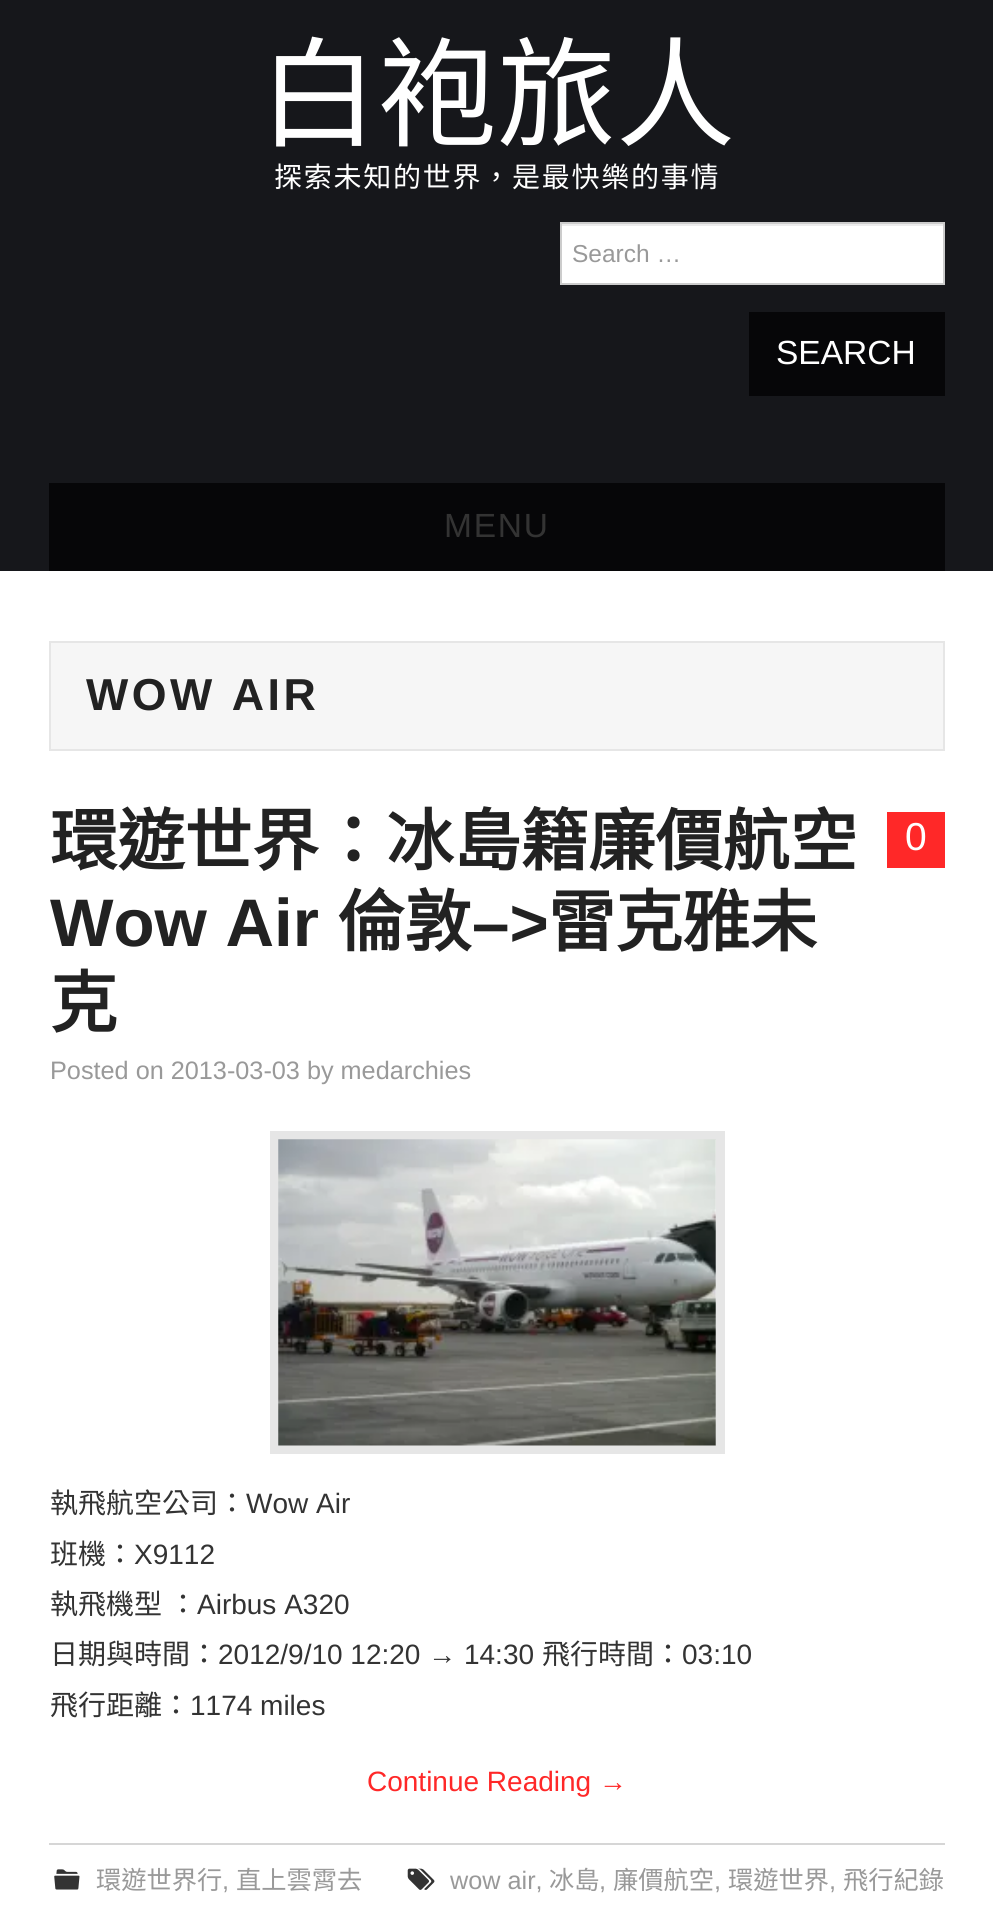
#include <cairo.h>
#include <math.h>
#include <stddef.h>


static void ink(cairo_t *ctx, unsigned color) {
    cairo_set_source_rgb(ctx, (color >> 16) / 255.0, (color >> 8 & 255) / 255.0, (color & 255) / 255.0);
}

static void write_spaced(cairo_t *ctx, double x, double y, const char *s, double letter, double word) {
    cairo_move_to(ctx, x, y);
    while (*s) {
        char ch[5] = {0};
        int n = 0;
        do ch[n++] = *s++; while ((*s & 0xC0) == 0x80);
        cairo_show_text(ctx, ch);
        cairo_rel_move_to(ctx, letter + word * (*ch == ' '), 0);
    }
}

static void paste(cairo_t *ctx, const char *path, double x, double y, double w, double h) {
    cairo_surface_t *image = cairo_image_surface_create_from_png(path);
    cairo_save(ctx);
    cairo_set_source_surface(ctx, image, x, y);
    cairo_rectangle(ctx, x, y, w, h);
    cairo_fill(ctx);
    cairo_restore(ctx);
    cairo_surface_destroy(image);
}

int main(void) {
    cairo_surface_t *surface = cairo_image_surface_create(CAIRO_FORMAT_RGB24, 993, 1906);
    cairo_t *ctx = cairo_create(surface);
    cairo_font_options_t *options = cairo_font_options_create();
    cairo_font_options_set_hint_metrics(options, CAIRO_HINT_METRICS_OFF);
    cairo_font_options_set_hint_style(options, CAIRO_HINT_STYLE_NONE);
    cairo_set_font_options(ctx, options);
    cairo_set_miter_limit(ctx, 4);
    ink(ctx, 0xFFFFFF);
    cairo_paint(ctx);
    ink(ctx, 0x16171B);
    cairo_rectangle(ctx, 0, 0, 993, 571);
    cairo_fill(ctx);
    cairo_select_font_face(ctx, "Noto Sans CJK TC", CAIRO_FONT_SLANT_NORMAL, CAIRO_FONT_WEIGHT_NORMAL);
    cairo_set_font_size(ctx, 119);
    ink(ctx, 0xFFFFFF);
    cairo_move_to(ctx, 259, 137);
    cairo_show_text(ctx, "白袍旅人");
    cairo_set_font_size(ctx, 28);
    write_spaced(ctx, 274, 187, "探索未知的世界，是最快樂的事情", 1.75, 0);
    cairo_rectangle(ctx, 562, 226, 381, 57);
    cairo_fill(ctx);
    ink(ctx, 0xECECEC);
    cairo_rectangle(ctx, 562, 224, 381, 2);
    cairo_fill(ctx);
    cairo_rectangle(ctx, 561, 223, 383, 61);
    ink(ctx, 0xCCCCCC);
    cairo_stroke(ctx);
    cairo_select_font_face(ctx, "Liberation Sans", CAIRO_FONT_SLANT_NORMAL, CAIRO_FONT_WEIGHT_NORMAL);
    cairo_set_font_size(ctx, 24.5);
    ink(ctx, 0x999999);
    cairo_move_to(ctx, 572, 262);
    cairo_show_text(ctx, "Search …");
    ink(ctx, 0x060608);
    cairo_rectangle(ctx, 749, 312, 196, 84);
    cairo_fill(ctx);
    cairo_set_font_size(ctx, 33.5);
    ink(ctx, 0xFFFFFF);
    cairo_move_to(ctx, 776, 364);
    cairo_show_text(ctx, "SEARCH");
    ink(ctx, 0x060608);
    cairo_rectangle(ctx, 49, 483, 896, 88);
    cairo_fill(ctx);
    ink(ctx, 0x333333);
    write_spaced(ctx, 444, 537, "MENU", 1.75, 0);
    ink(ctx, 0xF6F6F6);
    cairo_rectangle(ctx, 50, 642, 894, 108);
    cairo_fill_preserve(ctx);
    ink(ctx, 0xE6E6E6);
    cairo_stroke(ctx);
    cairo_select_font_face(ctx, "Liberation Sans", CAIRO_FONT_SLANT_NORMAL, CAIRO_FONT_WEIGHT_BOLD);
    cairo_set_font_size(ctx, 44.75);
    ink(ctx, 0x222222);
    write_spaced(ctx, 86, 710, "WOW AIR", 3.5, 0);
    cairo_select_font_face(ctx, "Noto Sans CJK TC", CAIRO_FONT_SLANT_NORMAL, CAIRO_FONT_WEIGHT_BOLD);
    cairo_set_font_size(ctx, 67.25);
    cairo_move_to(ctx, 50, 865);
    cairo_show_text(ctx, "環遊世界：冰島籍廉價航空");
    cairo_select_font_face(ctx, "Liberation Sans", CAIRO_FONT_SLANT_NORMAL, CAIRO_FONT_WEIGHT_BOLD);
    cairo_move_to(ctx, 50, 946);
    cairo_show_text(ctx, "Wow Air");
    cairo_select_font_face(ctx, "Noto Sans CJK TC", CAIRO_FONT_SLANT_NORMAL, CAIRO_FONT_WEIGHT_BOLD);
    cairo_move_to(ctx, 337, 946);
    cairo_show_text(ctx, "倫敦");
    cairo_select_font_face(ctx, "Liberation Sans", CAIRO_FONT_SLANT_NORMAL, CAIRO_FONT_WEIGHT_BOLD);
    cairo_move_to(ctx, 472, 946);
    cairo_show_text(ctx, "–>");
    cairo_select_font_face(ctx, "Noto Sans CJK TC", CAIRO_FONT_SLANT_NORMAL, CAIRO_FONT_WEIGHT_BOLD);
    cairo_move_to(ctx, 548, 946);
    cairo_show_text(ctx, "雷克雅未");
    cairo_move_to(ctx, 50, 1027);
    cairo_show_text(ctx, "克");
    ink(ctx, 0xFF2828);
    cairo_rectangle(ctx, 887, 812, 58, 56);
    cairo_fill(ctx);
    cairo_select_font_face(ctx, "Liberation Sans", CAIRO_FONT_SLANT_NORMAL, CAIRO_FONT_WEIGHT_NORMAL);
    cairo_set_font_size(ctx, 39);
    ink(ctx, 0xFFFFFF);
    cairo_move_to(ctx, 905, 850);
    cairo_show_text(ctx, "0");
    cairo_set_font_size(ctx, 25.25);
    ink(ctx, 0x999999);
    cairo_move_to(ctx, 50, 1079);
    cairo_show_text(ctx, "Posted on 2013-03-03 by medarchies");
    cairo_rectangle(ctx, 274.5, 1135.5, 446, 314);
    ink(ctx, 0xE6E6E6);
    cairo_set_line_width(ctx, 9);
    cairo_stroke(ctx);
    paste(ctx, "media/1.png", 278, 1139, 438, 307);
    cairo_select_font_face(ctx, "Noto Sans CJK TC", CAIRO_FONT_SLANT_NORMAL, CAIRO_FONT_WEIGHT_NORMAL);
    cairo_set_font_size(ctx, 28);
    ink(ctx, 0x333333);
    cairo_move_to(ctx, 50, 1513);
    cairo_show_text(ctx, "執飛航空公司：");
    cairo_select_font_face(ctx, "Liberation Sans", CAIRO_FONT_SLANT_NORMAL, CAIRO_FONT_WEIGHT_NORMAL);
    cairo_move_to(ctx, 246, 1513);
    cairo_show_text(ctx, "Wow Air");
    cairo_select_font_face(ctx, "Noto Sans CJK TC", CAIRO_FONT_SLANT_NORMAL, CAIRO_FONT_WEIGHT_NORMAL);
    cairo_move_to(ctx, 50, 1564);
    cairo_show_text(ctx, "班機：");
    cairo_select_font_face(ctx, "Liberation Sans", CAIRO_FONT_SLANT_NORMAL, CAIRO_FONT_WEIGHT_NORMAL);
    cairo_move_to(ctx, 134, 1564);
    cairo_show_text(ctx, "X9112");
    cairo_select_font_face(ctx, "Noto Sans CJK TC", CAIRO_FONT_SLANT_NORMAL, CAIRO_FONT_WEIGHT_NORMAL);
    cairo_move_to(ctx, 50, 1614);
    cairo_show_text(ctx, "執飛機型");
    cairo_move_to(ctx, 169, 1614);
    cairo_show_text(ctx, "：");
    cairo_select_font_face(ctx, "Liberation Sans", CAIRO_FONT_SLANT_NORMAL, CAIRO_FONT_WEIGHT_NORMAL);
    cairo_move_to(ctx, 197, 1614);
    cairo_show_text(ctx, "Airbus A320");
    cairo_select_font_face(ctx, "Noto Sans CJK TC", CAIRO_FONT_SLANT_NORMAL, CAIRO_FONT_WEIGHT_NORMAL);
    cairo_move_to(ctx, 50, 1664);
    cairo_show_text(ctx, "日期與時間：");
    cairo_select_font_face(ctx, "Liberation Sans", CAIRO_FONT_SLANT_NORMAL, CAIRO_FONT_WEIGHT_NORMAL);
    cairo_move_to(ctx, 218, 1664);
    cairo_show_text(ctx, "2012/9/10 12:20 → 14:30");
    cairo_select_font_face(ctx, "Noto Sans CJK TC", CAIRO_FONT_SLANT_NORMAL, CAIRO_FONT_WEIGHT_NORMAL);
    cairo_move_to(ctx, 542, 1664);
    cairo_show_text(ctx, "飛行時間：");
    cairo_select_font_face(ctx, "Liberation Sans", CAIRO_FONT_SLANT_NORMAL, CAIRO_FONT_WEIGHT_NORMAL);
    cairo_move_to(ctx, 682, 1664);
    cairo_show_text(ctx, "03:10");
    cairo_select_font_face(ctx, "Noto Sans CJK TC", CAIRO_FONT_SLANT_NORMAL, CAIRO_FONT_WEIGHT_NORMAL);
    cairo_move_to(ctx, 50, 1715);
    cairo_show_text(ctx, "飛行距離：");
    cairo_select_font_face(ctx, "Liberation Sans", CAIRO_FONT_SLANT_NORMAL, CAIRO_FONT_WEIGHT_NORMAL);
    cairo_move_to(ctx, 190, 1715);
    cairo_show_text(ctx, "1174 miles");
    ink(ctx, 0xFF2828);
    cairo_move_to(ctx, 367, 1791);
    cairo_show_text(ctx, "Continue Reading →");
    ink(ctx, 0xD6D6D6);
    cairo_rectangle(ctx, 49, 1843, 896, 2);
    cairo_fill(ctx);
    paste(ctx, "media/2.png", 54, 1869, 26, 21);
    cairo_select_font_face(ctx, "Noto Sans CJK TC", CAIRO_FONT_SLANT_NORMAL, CAIRO_FONT_WEIGHT_NORMAL);
    cairo_set_font_size(ctx, 25.25);
    ink(ctx, 0x999999);
    cairo_move_to(ctx, 96, 1889);
    cairo_show_text(ctx, "環遊世界行");
    cairo_select_font_face(ctx, "Liberation Sans", CAIRO_FONT_SLANT_NORMAL, CAIRO_FONT_WEIGHT_NORMAL);
    cairo_move_to(ctx, 222, 1889);
    cairo_show_text(ctx, ",");
    cairo_select_font_face(ctx, "Noto Sans CJK TC", CAIRO_FONT_SLANT_NORMAL, CAIRO_FONT_WEIGHT_NORMAL);
    cairo_move_to(ctx, 236, 1889);
    cairo_show_text(ctx, "直上雲霄去");
    paste(ctx, "media/3.png", 407, 1868, 28, 22);
    cairo_select_font_face(ctx, "Liberation Sans", CAIRO_FONT_SLANT_NORMAL, CAIRO_FONT_WEIGHT_NORMAL);
    cairo_move_to(ctx, 450, 1889);
    cairo_show_text(ctx, "wow air,");
    cairo_select_font_face(ctx, "Noto Sans CJK TC", CAIRO_FONT_SLANT_NORMAL, CAIRO_FONT_WEIGHT_NORMAL);
    cairo_move_to(ctx, 549, 1889);
    cairo_show_text(ctx, "冰島");
    cairo_select_font_face(ctx, "Liberation Sans", CAIRO_FONT_SLANT_NORMAL, CAIRO_FONT_WEIGHT_NORMAL);
    cairo_move_to(ctx, 599, 1889);
    cairo_show_text(ctx, ",");
    cairo_select_font_face(ctx, "Noto Sans CJK TC", CAIRO_FONT_SLANT_NORMAL, CAIRO_FONT_WEIGHT_NORMAL);
    cairo_move_to(ctx, 613, 1889);
    cairo_show_text(ctx, "廉價航空");
    cairo_select_font_face(ctx, "Liberation Sans", CAIRO_FONT_SLANT_NORMAL, CAIRO_FONT_WEIGHT_NORMAL);
    cairo_move_to(ctx, 714, 1889);
    cairo_show_text(ctx, ",");
    cairo_select_font_face(ctx, "Noto Sans CJK TC", CAIRO_FONT_SLANT_NORMAL, CAIRO_FONT_WEIGHT_NORMAL);
    cairo_move_to(ctx, 728, 1889);
    cairo_show_text(ctx, "環遊世界");
    cairo_select_font_face(ctx, "Liberation Sans", CAIRO_FONT_SLANT_NORMAL, CAIRO_FONT_WEIGHT_NORMAL);
    cairo_move_to(ctx, 829, 1889);
    cairo_show_text(ctx, ",");
    cairo_select_font_face(ctx, "Noto Sans CJK TC", CAIRO_FONT_SLANT_NORMAL, CAIRO_FONT_WEIGHT_NORMAL);
    cairo_move_to(ctx, 843, 1889);
    cairo_show_text(ctx, "飛行紀錄");
    cairo_surface_write_to_png(surface, "image.png");
    cairo_font_options_destroy(options);
    cairo_destroy(ctx);
    cairo_surface_destroy(surface);
    return 0;
}
